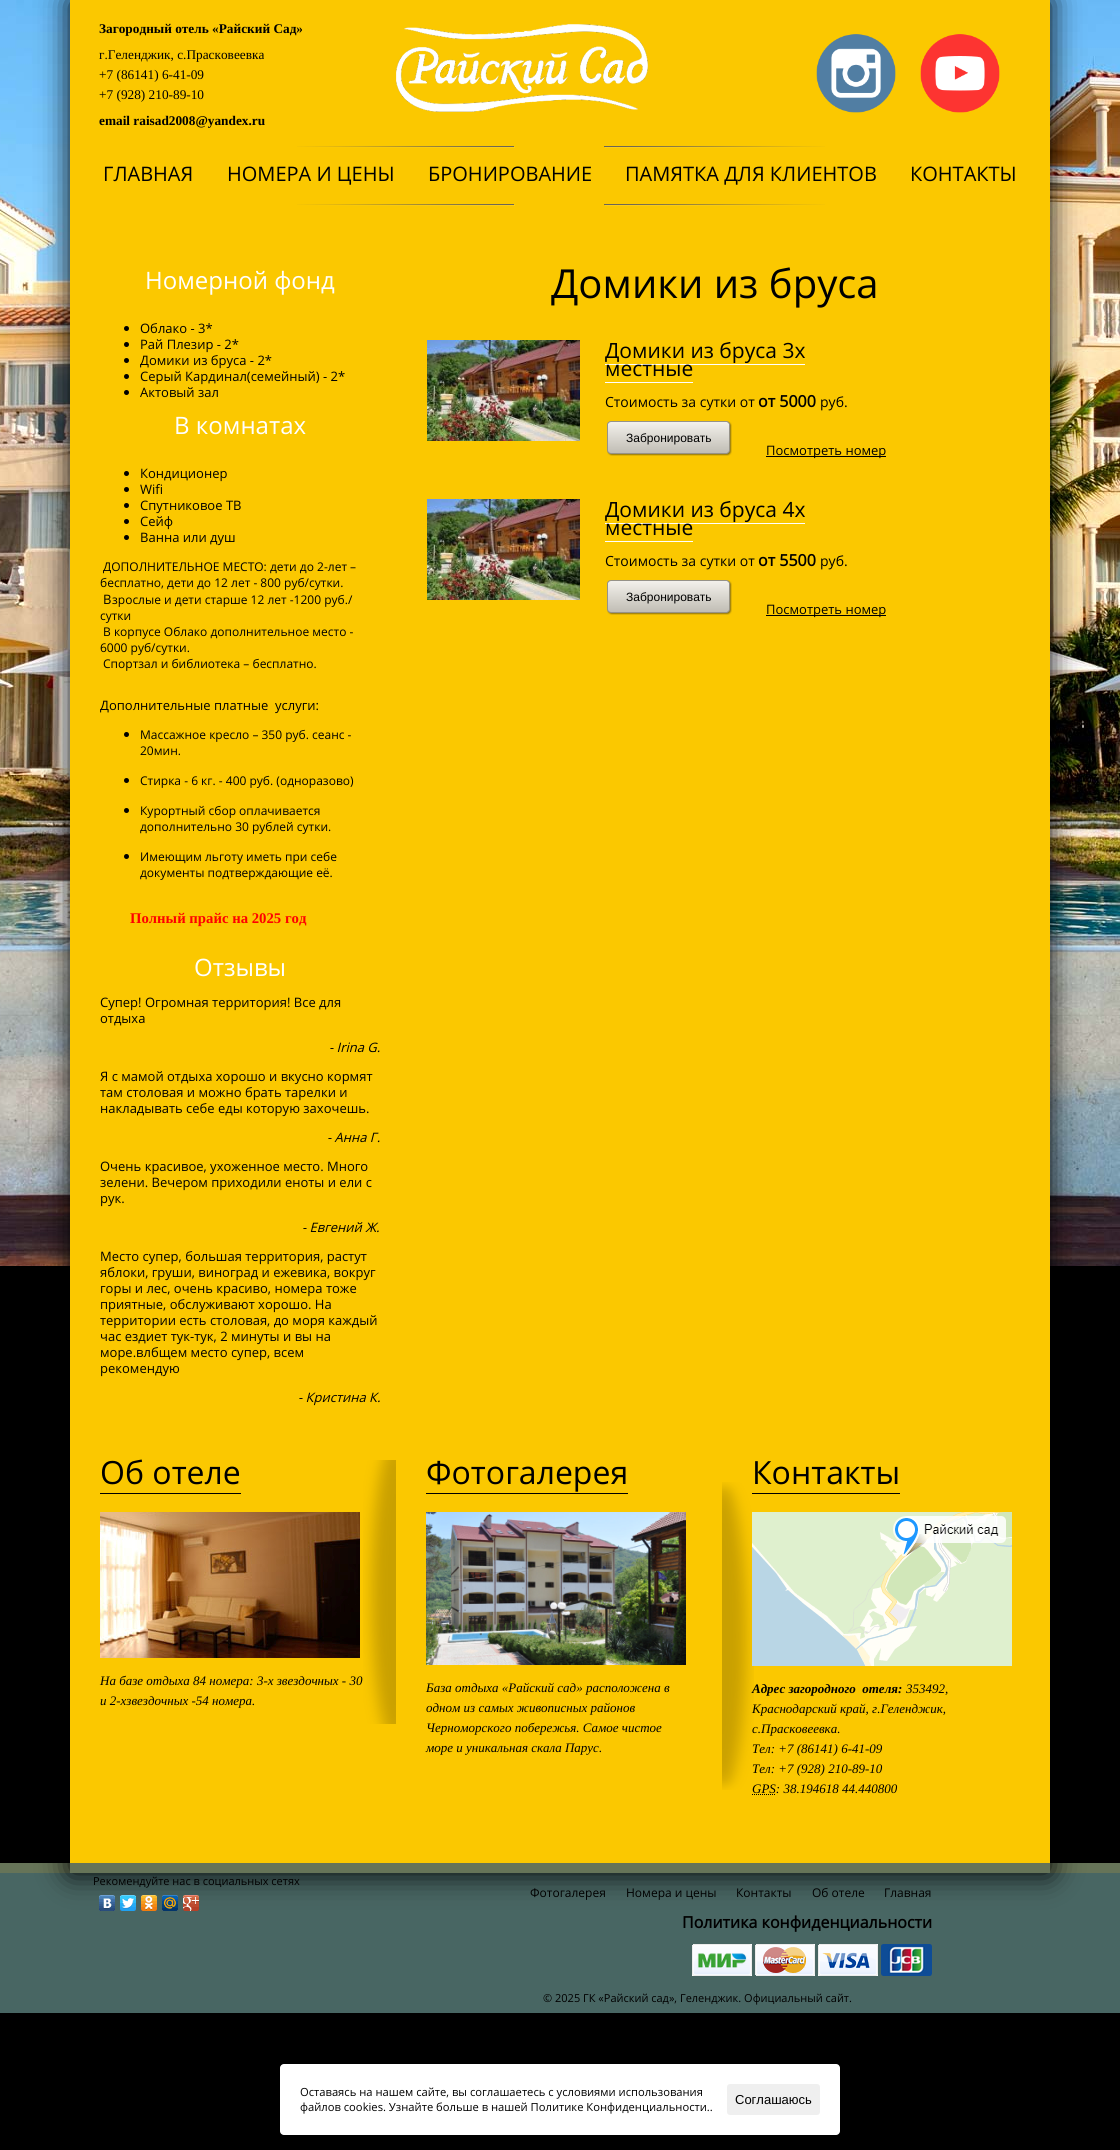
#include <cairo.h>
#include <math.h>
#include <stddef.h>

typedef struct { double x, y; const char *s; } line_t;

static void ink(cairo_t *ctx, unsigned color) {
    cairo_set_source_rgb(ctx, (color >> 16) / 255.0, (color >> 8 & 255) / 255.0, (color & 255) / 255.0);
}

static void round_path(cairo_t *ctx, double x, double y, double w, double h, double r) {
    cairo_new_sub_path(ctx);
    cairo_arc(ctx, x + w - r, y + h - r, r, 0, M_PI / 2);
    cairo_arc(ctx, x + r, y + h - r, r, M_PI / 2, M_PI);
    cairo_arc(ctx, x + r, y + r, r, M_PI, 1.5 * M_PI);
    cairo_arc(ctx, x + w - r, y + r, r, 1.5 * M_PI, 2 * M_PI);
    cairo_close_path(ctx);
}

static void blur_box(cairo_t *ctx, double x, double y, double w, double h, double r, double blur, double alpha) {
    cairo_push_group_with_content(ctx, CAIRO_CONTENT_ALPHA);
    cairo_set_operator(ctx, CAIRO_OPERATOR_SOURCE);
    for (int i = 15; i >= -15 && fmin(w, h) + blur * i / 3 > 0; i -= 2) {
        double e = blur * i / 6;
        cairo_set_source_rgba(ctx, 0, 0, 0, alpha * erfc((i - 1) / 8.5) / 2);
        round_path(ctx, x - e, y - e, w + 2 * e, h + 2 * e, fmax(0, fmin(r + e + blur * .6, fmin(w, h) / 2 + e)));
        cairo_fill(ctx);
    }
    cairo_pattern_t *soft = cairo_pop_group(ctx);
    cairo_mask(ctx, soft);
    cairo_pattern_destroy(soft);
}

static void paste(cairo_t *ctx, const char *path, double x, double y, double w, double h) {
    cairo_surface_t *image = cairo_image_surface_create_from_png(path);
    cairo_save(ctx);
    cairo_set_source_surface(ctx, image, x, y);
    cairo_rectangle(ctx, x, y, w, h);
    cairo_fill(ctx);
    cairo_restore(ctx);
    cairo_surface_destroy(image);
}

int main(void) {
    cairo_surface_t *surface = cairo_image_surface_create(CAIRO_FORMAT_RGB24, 1120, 2150);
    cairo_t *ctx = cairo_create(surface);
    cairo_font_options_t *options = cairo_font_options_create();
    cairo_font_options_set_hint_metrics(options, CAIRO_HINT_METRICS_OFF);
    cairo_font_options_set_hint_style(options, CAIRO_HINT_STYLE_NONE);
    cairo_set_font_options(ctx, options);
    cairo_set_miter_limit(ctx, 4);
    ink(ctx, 0x000000);
    cairo_paint(ctx);
    paste(ctx, "media/1.png", 0, 0, 1120, 1266);
    ink(ctx, 0x667458);
    cairo_rectangle(ctx, 0, 1863, 1120, 10);
    cairo_fill(ctx);
    ink(ctx, 0x486663);
    cairo_rectangle(ctx, 0, 1873, 1120, 140);
    cairo_fill(ctx);
    ink(ctx, 0x000000);
    blur_box(ctx, 70, 0, 980, 1873, 0, 15, 1);
    ink(ctx, 0xFBC800);
    cairo_rectangle(ctx, 70, 0, 980, 1863);
    cairo_fill(ctx);
    ink(ctx, 0x667458);
    cairo_rectangle(ctx, 70, 1863, 980, 10);
    cairo_fill(ctx);
    cairo_select_font_face(ctx, "Liberation Serif", CAIRO_FONT_SLANT_NORMAL, CAIRO_FONT_WEIGHT_BOLD);
    cairo_set_font_size(ctx, 13.3);
    ink(ctx, 0x000000);
    cairo_move_to(ctx, 99, 33);
    cairo_show_text(ctx, "Загородный отель «Райский Сад»");
    cairo_select_font_face(ctx, "Liberation Serif", CAIRO_FONT_SLANT_NORMAL, CAIRO_FONT_WEIGHT_NORMAL);
    {
        static const line_t items[] = {
            {99, 59, "г.Геленджик, с.Прасковеевка"},
            {99, 79, "+7 (86141) 6-41-09"},
            {99, 99, "+7 (928) 210-89-10"},
        };
        for (size_t i = 0; i < sizeof items / sizeof *items; i++) {
            cairo_move_to(ctx, items[i].x, items[i].y);
            cairo_show_text(ctx, items[i].s);
        }
    }
    cairo_select_font_face(ctx, "Liberation Serif", CAIRO_FONT_SLANT_NORMAL, CAIRO_FONT_WEIGHT_BOLD);
    cairo_move_to(ctx, 99, 125);
    cairo_show_text(ctx, "email raisad2008@yandex.ru");
    paste(ctx, "media/2.png", 396, 24, 252, 88);
    paste(ctx, "media/3.png", 816, 34, 80, 79);
    paste(ctx, "media/4.png", 920, 34, 80, 79);
    paste(ctx, "media/5.png", 297, 146, 528, 60);
    cairo_select_font_face(ctx, "Open Sans", CAIRO_FONT_SLANT_NORMAL, CAIRO_FONT_WEIGHT_NORMAL);
    cairo_set_font_size(ctx, 20);
    {
        static const line_t items[] = {
            {103, 181, "ГЛАВНАЯ"},
            {227, 181, "НОМЕРА И ЦЕНЫ"},
            {428, 181, "БРОНИРОВАНИЕ"},
            {625, 181, "ПАМЯТКА ДЛЯ КЛИЕНТОВ"},
            {910, 181, "КОНТАКТЫ"},
        };
        for (size_t i = 0; i < sizeof items / sizeof *items; i++) {
            cairo_move_to(ctx, items[i].x, items[i].y);
            cairo_show_text(ctx, items[i].s);
        }
    }
    cairo_set_font_size(ctx, 24);
    ink(ctx, 0xFFFFFF);
    cairo_move_to(ctx, 145, 289);
    cairo_show_text(ctx, "Номерной фонд");
    ink(ctx, 0x000000);
    cairo_new_path(ctx);
    cairo_arc(ctx, 126.5, 328.5, 2.5, 0, 2 * M_PI);
    cairo_fill(ctx);
    cairo_set_font_size(ctx, 13);
    cairo_move_to(ctx, 140, 333);
    cairo_show_text(ctx, "Облако - 3*");
    cairo_new_path(ctx);
    cairo_arc(ctx, 126.5, 344.5, 2.5, 0, 2 * M_PI);
    cairo_fill(ctx);
    cairo_move_to(ctx, 140, 349);
    cairo_show_text(ctx, "Рай Плезир - 2*");
    cairo_new_path(ctx);
    cairo_arc(ctx, 126.5, 360.5, 2.5, 0, 2 * M_PI);
    cairo_fill(ctx);
    cairo_move_to(ctx, 140, 365);
    cairo_show_text(ctx, "Домики из бруса - 2*");
    cairo_new_path(ctx);
    cairo_arc(ctx, 126.5, 376.5, 2.5, 0, 2 * M_PI);
    cairo_fill(ctx);
    cairo_move_to(ctx, 140, 381);
    cairo_show_text(ctx, "Серый Кардинал(семейный) - 2*");
    cairo_new_path(ctx);
    cairo_arc(ctx, 126.5, 392.5, 2.5, 0, 2 * M_PI);
    cairo_fill(ctx);
    cairo_move_to(ctx, 140, 397);
    cairo_show_text(ctx, "Актовый зал");
    cairo_set_font_size(ctx, 24);
    ink(ctx, 0xFFFFFF);
    cairo_move_to(ctx, 174, 434);
    cairo_show_text(ctx, "В комнатах");
    ink(ctx, 0x000000);
    cairo_new_path(ctx);
    cairo_arc(ctx, 126.5, 473.5, 2.5, 0, 2 * M_PI);
    cairo_fill(ctx);
    cairo_set_font_size(ctx, 13);
    cairo_move_to(ctx, 140, 478);
    cairo_show_text(ctx, "Кондиционeр");
    cairo_new_path(ctx);
    cairo_arc(ctx, 126.5, 489.5, 2.5, 0, 2 * M_PI);
    cairo_fill(ctx);
    cairo_move_to(ctx, 140, 494);
    cairo_show_text(ctx, "Wifi");
    cairo_new_path(ctx);
    cairo_arc(ctx, 126.5, 505.5, 2.5, 0, 2 * M_PI);
    cairo_fill(ctx);
    cairo_move_to(ctx, 140, 510);
    cairo_show_text(ctx, "Спутниковое ТВ");
    cairo_new_path(ctx);
    cairo_arc(ctx, 126.5, 521.5, 2.5, 0, 2 * M_PI);
    cairo_fill(ctx);
    cairo_move_to(ctx, 140, 526);
    cairo_show_text(ctx, "Сейф");
    cairo_new_path(ctx);
    cairo_arc(ctx, 126.5, 537.5, 2.5, 0, 2 * M_PI);
    cairo_fill(ctx);
    cairo_move_to(ctx, 140, 542);
    cairo_show_text(ctx, "Ванна или душ");
    cairo_set_font_size(ctx, 12);
    cairo_move_to(ctx, 103, 571);
    cairo_show_text(ctx, "ДОПОЛНИТЕЛЬНОЕ МЕСТО: дети до 2-лет –");
    cairo_move_to(ctx, 100, 587);
    cairo_show_text(ctx, "бесплатно, дети до 12 лет - 800 руб/сутки.");
    cairo_set_font_size(ctx, 13);
    cairo_move_to(ctx, 103, 604);
    cairo_show_text(ctx, "В");
    cairo_set_font_size(ctx, 12);
    {
        static const line_t items[] = {
            {112, 604, "зрослые и дети старше 12 лет -1200 руб./"},
            {100, 620, "сутки"},
            {103, 636, "В корпусе Облако дополнительное место -"},
            {100, 652, "6000 руб/сутки."},
            {103, 668, "Спортзал и библиотека – бесплатно."},
        };
        for (size_t i = 0; i < sizeof items / sizeof *items; i++) {
            cairo_move_to(ctx, items[i].x, items[i].y);
            cairo_show_text(ctx, items[i].s);
        }
    }
    cairo_set_font_size(ctx, 13);
    cairo_move_to(ctx, 100, 710);
    cairo_show_text(ctx, "Дополнительные платные  услуги:");
    cairo_new_path(ctx);
    cairo_arc(ctx, 126.5, 734.5, 2.5, 0, 2 * M_PI);
    cairo_fill(ctx);
    cairo_set_font_size(ctx, 12);
    cairo_move_to(ctx, 140, 739);
    cairo_show_text(ctx, "Массажное кресло – 350 руб. сеанс -");
    cairo_move_to(ctx, 140, 755);
    cairo_show_text(ctx, "20мин.");
    cairo_new_path(ctx);
    cairo_arc(ctx, 126.5, 780.5, 2.5, 0, 2 * M_PI);
    cairo_fill(ctx);
    cairo_move_to(ctx, 140, 785);
    cairo_show_text(ctx, "Стирка - 6 кг. - 400 руб. (одноразово)");
    cairo_new_path(ctx);
    cairo_arc(ctx, 126.5, 810.5, 2.5, 0, 2 * M_PI);
    cairo_fill(ctx);
    cairo_move_to(ctx, 140, 815);
    cairo_show_text(ctx, "Курортный сбор оплачивается");
    cairo_move_to(ctx, 140, 831);
    cairo_show_text(ctx, "дополнительно 30 рублей сутки.");
    cairo_new_path(ctx);
    cairo_arc(ctx, 126.5, 856.5, 2.5, 0, 2 * M_PI);
    cairo_fill(ctx);
    cairo_move_to(ctx, 140, 861);
    cairo_show_text(ctx, "Имеющим льготу иметь при себе");
    cairo_move_to(ctx, 140, 877);
    cairo_show_text(ctx, "документы подтверждающие её.");
    cairo_select_font_face(ctx, "Liberation Serif", CAIRO_FONT_SLANT_NORMAL, CAIRO_FONT_WEIGHT_BOLD);
    cairo_set_font_size(ctx, 14.75);
    ink(ctx, 0xFF0000);
    cairo_move_to(ctx, 130, 923);
    cairo_show_text(ctx, "Полный прайс на 2025 год");
    cairo_select_font_face(ctx, "Open Sans", CAIRO_FONT_SLANT_NORMAL, CAIRO_FONT_WEIGHT_NORMAL);
    cairo_set_font_size(ctx, 24);
    ink(ctx, 0xFFFFFF);
    cairo_move_to(ctx, 194, 976);
    cairo_show_text(ctx, "Отзывы");
    cairo_set_font_size(ctx, 13);
    ink(ctx, 0x000000);
    cairo_move_to(ctx, 100, 1007);
    cairo_show_text(ctx, "Супер! Огромная территория! Все для");
    cairo_move_to(ctx, 100, 1023);
    cairo_show_text(ctx, "отдыха");
    cairo_select_font_face(ctx, "Open Sans", CAIRO_FONT_SLANT_ITALIC, CAIRO_FONT_WEIGHT_NORMAL);
    cairo_move_to(ctx, 329, 1052);
    cairo_show_text(ctx, "- Irina G.");
    cairo_select_font_face(ctx, "Open Sans", CAIRO_FONT_SLANT_NORMAL, CAIRO_FONT_WEIGHT_NORMAL);
    {
        static const line_t items[] = {
            {100, 1081, "Я с мамой отдыха хорошо и вкусно кормят"},
            {100, 1097, "там столовая и можно брать тарелки и"},
            {100, 1113, "накладывать себе еды которую захочешь."},
        };
        for (size_t i = 0; i < sizeof items / sizeof *items; i++) {
            cairo_move_to(ctx, items[i].x, items[i].y);
            cairo_show_text(ctx, items[i].s);
        }
    }
    cairo_select_font_face(ctx, "Open Sans", CAIRO_FONT_SLANT_ITALIC, CAIRO_FONT_WEIGHT_NORMAL);
    cairo_move_to(ctx, 327, 1142);
    cairo_show_text(ctx, "- Анна Г.");
    cairo_select_font_face(ctx, "Open Sans", CAIRO_FONT_SLANT_NORMAL, CAIRO_FONT_WEIGHT_NORMAL);
    {
        static const line_t items[] = {
            {100, 1171, "Очень красивое, ухоженное место. Много"},
            {100, 1187, "зелени. Вечером приходили еноты и ели с"},
            {100, 1203, "рук."},
        };
        for (size_t i = 0; i < sizeof items / sizeof *items; i++) {
            cairo_move_to(ctx, items[i].x, items[i].y);
            cairo_show_text(ctx, items[i].s);
        }
    }
    cairo_select_font_face(ctx, "Open Sans", CAIRO_FONT_SLANT_ITALIC, CAIRO_FONT_WEIGHT_NORMAL);
    cairo_move_to(ctx, 302, 1232);
    cairo_show_text(ctx, "- Евгений Ж.");
    cairo_select_font_face(ctx, "Open Sans", CAIRO_FONT_SLANT_NORMAL, CAIRO_FONT_WEIGHT_NORMAL);
    {
        static const line_t items[] = {
            {100, 1261, "Место супер, большая территория, растут"},
            {100, 1277, "яблоки, груши, виноград и ежевика, вокруг"},
            {100, 1293, "горы и лес, очень красиво, номера тоже"},
            {100, 1309, "приятные, обслуживают хорошо. На"},
            {100, 1325, "территории есть столовая, до моря каждый"},
            {100, 1341, "час ездиет тук-тук, 2 минуты и вы на"},
            {100, 1357, "море.влбщем место супер, всем"},
            {100, 1373, "рекомендую"},
        };
        for (size_t i = 0; i < sizeof items / sizeof *items; i++) {
            cairo_move_to(ctx, items[i].x, items[i].y);
            cairo_show_text(ctx, items[i].s);
        }
    }
    cairo_select_font_face(ctx, "Open Sans", CAIRO_FONT_SLANT_ITALIC, CAIRO_FONT_WEIGHT_NORMAL);
    cairo_move_to(ctx, 298, 1402);
    cairo_show_text(ctx, "- Кристина К.");
    cairo_select_font_face(ctx, "Open Sans", CAIRO_FONT_SLANT_NORMAL, CAIRO_FONT_WEIGHT_NORMAL);
    cairo_set_font_size(ctx, 40);
    cairo_move_to(ctx, 551, 298);
    cairo_show_text(ctx, "Домики из бруса");
    paste(ctx, "media/6.png", 427, 340, 153, 101);
    cairo_set_font_size(ctx, 21);
    cairo_move_to(ctx, 605, 358);
    cairo_show_text(ctx, "Домики из бруса 3х");
    ink(ctx, 0xFFFFFF);
    cairo_rectangle(ctx, 605, 364, 200, 1);
    cairo_fill(ctx);
    ink(ctx, 0x000000);
    cairo_move_to(ctx, 605, 376);
    cairo_show_text(ctx, "местные");
    ink(ctx, 0xFFFFFF);
    cairo_rectangle(ctx, 605, 382, 88, 1);
    cairo_fill(ctx);
    cairo_set_font_size(ctx, 14);
    ink(ctx, 0x000000);
    cairo_move_to(ctx, 605, 407);
    cairo_show_text(ctx, "Стоимость за сутки от");
    cairo_select_font_face(ctx, "Open Sans", CAIRO_FONT_SLANT_NORMAL, CAIRO_FONT_WEIGHT_BOLD);
    cairo_set_font_size(ctx, 16);
    cairo_move_to(ctx, 758, 407);
    cairo_show_text(ctx, "от 5000");
    cairo_select_font_face(ctx, "Open Sans", CAIRO_FONT_SLANT_NORMAL, CAIRO_FONT_WEIGHT_NORMAL);
    cairo_set_font_size(ctx, 14);
    cairo_move_to(ctx, 820, 407);
    cairo_show_text(ctx, "руб.");
    paste(ctx, "media/7.png", 607, 421, 125, 35);
    cairo_select_font_face(ctx, "Liberation Sans", CAIRO_FONT_SLANT_NORMAL, CAIRO_FONT_WEIGHT_NORMAL);
    cairo_set_font_size(ctx, 12);
    cairo_move_to(ctx, 626, 442);
    cairo_show_text(ctx, "Забронировать");
    cairo_rectangle(ctx, 766, 456, 120, 1);
    cairo_fill(ctx);
    cairo_select_font_face(ctx, "Open Sans", CAIRO_FONT_SLANT_NORMAL, CAIRO_FONT_WEIGHT_NORMAL);
    cairo_set_font_size(ctx, 13);
    cairo_move_to(ctx, 766, 455);
    cairo_show_text(ctx, "Посмотреть номер");
    paste(ctx, "media/6.png", 427, 499, 153, 101);
    cairo_set_font_size(ctx, 21);
    cairo_move_to(ctx, 605, 517);
    cairo_show_text(ctx, "Домики из бруса 4х");
    ink(ctx, 0xFFFFFF);
    cairo_rectangle(ctx, 605, 523, 200, 1);
    cairo_fill(ctx);
    ink(ctx, 0x000000);
    cairo_move_to(ctx, 605, 535);
    cairo_show_text(ctx, "местные");
    ink(ctx, 0xFFFFFF);
    cairo_rectangle(ctx, 605, 541, 88, 1);
    cairo_fill(ctx);
    cairo_set_font_size(ctx, 14);
    ink(ctx, 0x000000);
    cairo_move_to(ctx, 605, 566);
    cairo_show_text(ctx, "Стоимость за сутки от");
    cairo_select_font_face(ctx, "Open Sans", CAIRO_FONT_SLANT_NORMAL, CAIRO_FONT_WEIGHT_BOLD);
    cairo_set_font_size(ctx, 16);
    cairo_move_to(ctx, 758, 566);
    cairo_show_text(ctx, "от 5500");
    cairo_select_font_face(ctx, "Open Sans", CAIRO_FONT_SLANT_NORMAL, CAIRO_FONT_WEIGHT_NORMAL);
    cairo_set_font_size(ctx, 14);
    cairo_move_to(ctx, 820, 566);
    cairo_show_text(ctx, "руб.");
    paste(ctx, "media/7.png", 607, 580, 125, 35);
    cairo_select_font_face(ctx, "Liberation Sans", CAIRO_FONT_SLANT_NORMAL, CAIRO_FONT_WEIGHT_NORMAL);
    cairo_set_font_size(ctx, 12);
    cairo_move_to(ctx, 626, 601);
    cairo_show_text(ctx, "Забронировать");
    cairo_rectangle(ctx, 766, 615, 120, 1);
    cairo_fill(ctx);
    cairo_select_font_face(ctx, "Open Sans", CAIRO_FONT_SLANT_NORMAL, CAIRO_FONT_WEIGHT_NORMAL);
    cairo_set_font_size(ctx, 13);
    cairo_move_to(ctx, 766, 614);
    cairo_show_text(ctx, "Посмотреть номер");
    paste(ctx, "media/8.png", 363, 1460, 33, 264);
    cairo_set_font_size(ctx, 32);
    cairo_move_to(ctx, 100, 1484);
    cairo_show_text(ctx, "Об отеле");
    cairo_rectangle(ctx, 100, 1493, 141, 1);
    cairo_fill(ctx);
    paste(ctx, "media/9.png", 100, 1512, 260, 146);
    cairo_select_font_face(ctx, "Liberation Serif", CAIRO_FONT_SLANT_ITALIC, CAIRO_FONT_WEIGHT_NORMAL);
    cairo_set_font_size(ctx, 13);
    cairo_move_to(ctx, 100, 1685);
    cairo_show_text(ctx, "На базе отдыха 84 номера: 3-х звездочных - 30");
    cairo_move_to(ctx, 100, 1705);
    cairo_show_text(ctx, "и 2-хзвездочных -54 номера.");
    cairo_select_font_face(ctx, "Open Sans", CAIRO_FONT_SLANT_NORMAL, CAIRO_FONT_WEIGHT_NORMAL);
    cairo_set_font_size(ctx, 32);
    cairo_move_to(ctx, 426, 1484);
    cairo_show_text(ctx, "Фотогалерея");
    cairo_rectangle(ctx, 426, 1493, 202, 1);
    cairo_fill(ctx);
    paste(ctx, "media/10.png", 426, 1512, 260, 153);
    cairo_select_font_face(ctx, "Liberation Serif", CAIRO_FONT_SLANT_ITALIC, CAIRO_FONT_WEIGHT_NORMAL);
    cairo_set_font_size(ctx, 13);
    {
        static const line_t items[] = {
            {426, 1692, "База отдыха «Райский сад» расположена в"},
            {426, 1712, "одном из самых живописных районов"},
            {426, 1732, "Черноморского побережья. Самое чистое"},
            {426, 1752, "море и уникальная скала Парус."},
        };
        for (size_t i = 0; i < sizeof items / sizeof *items; i++) {
            cairo_move_to(ctx, items[i].x, items[i].y);
            cairo_show_text(ctx, items[i].s);
        }
    }
    paste(ctx, "media/11.png", 722, 1482, 32, 308);
    cairo_select_font_face(ctx, "Open Sans", CAIRO_FONT_SLANT_NORMAL, CAIRO_FONT_WEIGHT_NORMAL);
    cairo_set_font_size(ctx, 32);
    cairo_move_to(ctx, 752, 1484);
    cairo_show_text(ctx, "Контакты");
    cairo_rectangle(ctx, 752, 1493, 148, 1);
    cairo_fill(ctx);
    paste(ctx, "media/12.png", 752, 1512, 260, 154);
    cairo_select_font_face(ctx, "Liberation Serif", CAIRO_FONT_SLANT_ITALIC, CAIRO_FONT_WEIGHT_BOLD);
    cairo_set_font_size(ctx, 13);
    cairo_move_to(ctx, 752, 1693);
    cairo_show_text(ctx, "Адрес загородного  отеля:");
    cairo_select_font_face(ctx, "Liberation Serif", CAIRO_FONT_SLANT_ITALIC, CAIRO_FONT_WEIGHT_NORMAL);
    {
        static const line_t items[] = {
            {906, 1693, "353492,"},
            {752, 1713, "Краснодарский край, г.Геленджик,"},
            {752, 1733, "с.Прасковеевка."},
            {752, 1753, "Тел: +7 (86141) 6-41-09"},
            {752, 1773, "Тел: +7 (928) 210-89-10"},
            {752, 1793, "GPS: 38.194618 44.440800"},
        };
        for (size_t i = 0; i < sizeof items / sizeof *items; i++) {
            cairo_move_to(ctx, items[i].x, items[i].y);
            cairo_show_text(ctx, items[i].s);
        }
    }
    cairo_new_path(ctx);
    cairo_move_to(ctx, 752, 1794.5);
    cairo_line_to(ctx, 776, 1794.5);
    cairo_set_line_width(ctx, 1);
    cairo_set_dash(ctx, (double[]){1, 1}, 2, 0);
    cairo_stroke(ctx);
    cairo_select_font_face(ctx, "Open Sans", CAIRO_FONT_SLANT_NORMAL, CAIRO_FONT_WEIGHT_NORMAL);
    cairo_set_font_size(ctx, 11);
    cairo_move_to(ctx, 93, 1885);
    cairo_show_text(ctx, "Рекомендуйте нас в социальных сетях");
    paste(ctx, "media/13.png", 99, 1895, 16, 16);
    paste(ctx, "media/14.png", 120, 1895, 16, 16);
    paste(ctx, "media/15.png", 141, 1895, 16, 16);
    paste(ctx, "media/16.png", 162, 1895, 16, 16);
    paste(ctx, "media/17.png", 183, 1895, 16, 16);
    cairo_set_font_size(ctx, 12);
    {
        static const line_t items[] = {
            {530, 1897, "Фотогалерея"},
            {626, 1897, "Номера и цены"},
            {736, 1897, "Контакты"},
            {812, 1897, "Об отеле"},
            {884, 1897, "Главная"},
        };
        for (size_t i = 0; i < sizeof items / sizeof *items; i++) {
            cairo_move_to(ctx, items[i].x, items[i].y);
            cairo_show_text(ctx, items[i].s);
        }
    }
    cairo_select_font_face(ctx, "Open Sans", CAIRO_FONT_SLANT_NORMAL, CAIRO_FONT_WEIGHT_BOLD);
    cairo_set_font_size(ctx, 16);
    cairo_move_to(ctx, 682, 1928);
    cairo_show_text(ctx, "Политика конфиденциальности");
    paste(ctx, "media/18.png", 692, 1944, 60, 32);
    paste(ctx, "media/19.png", 755, 1944, 60, 32);
    paste(ctx, "media/20.png", 818, 1944, 60, 32);
    paste(ctx, "media/21.png", 881, 1944, 51, 32);
    cairo_select_font_face(ctx, "Open Sans", CAIRO_FONT_SLANT_NORMAL, CAIRO_FONT_WEIGHT_NORMAL);
    cairo_set_font_size(ctx, 11);
    cairo_move_to(ctx, 543, 2002);
    cairo_show_text(ctx, "© 2025 ГК «Райский сад», Геленджик. Официальный сайт.");
    ink(ctx, 0xFFFFFF);
    round_path(ctx, 280, 2064, 560, 71, 4);
    cairo_fill(ctx);
    cairo_set_font_size(ctx, 11.2);
    ink(ctx, 0x000000);
    cairo_move_to(ctx, 300, 2096);
    cairo_show_text(ctx, "Оставаясь на нашем сайте, вы соглашаетесь с условиями использования");
    cairo_move_to(ctx, 300, 2111);
    cairo_show_text(ctx, "файлов cookies. Узнайте больше в нашей Политике Конфиденциальности..");
    ink(ctx, 0xEFEFEF);
    round_path(ctx, 727, 2084, 93, 31, 3);
    cairo_fill(ctx);
    cairo_select_font_face(ctx, "Liberation Sans", CAIRO_FONT_SLANT_NORMAL, CAIRO_FONT_WEIGHT_NORMAL);
    cairo_set_font_size(ctx, 13);
    ink(ctx, 0x000000);
    cairo_move_to(ctx, 735, 2104);
    cairo_show_text(ctx, "Соглашаюсь");
    cairo_surface_write_to_png(surface, "image.png");
    cairo_font_options_destroy(options);
    cairo_destroy(ctx);
    cairo_surface_destroy(surface);
    return 0;
}
